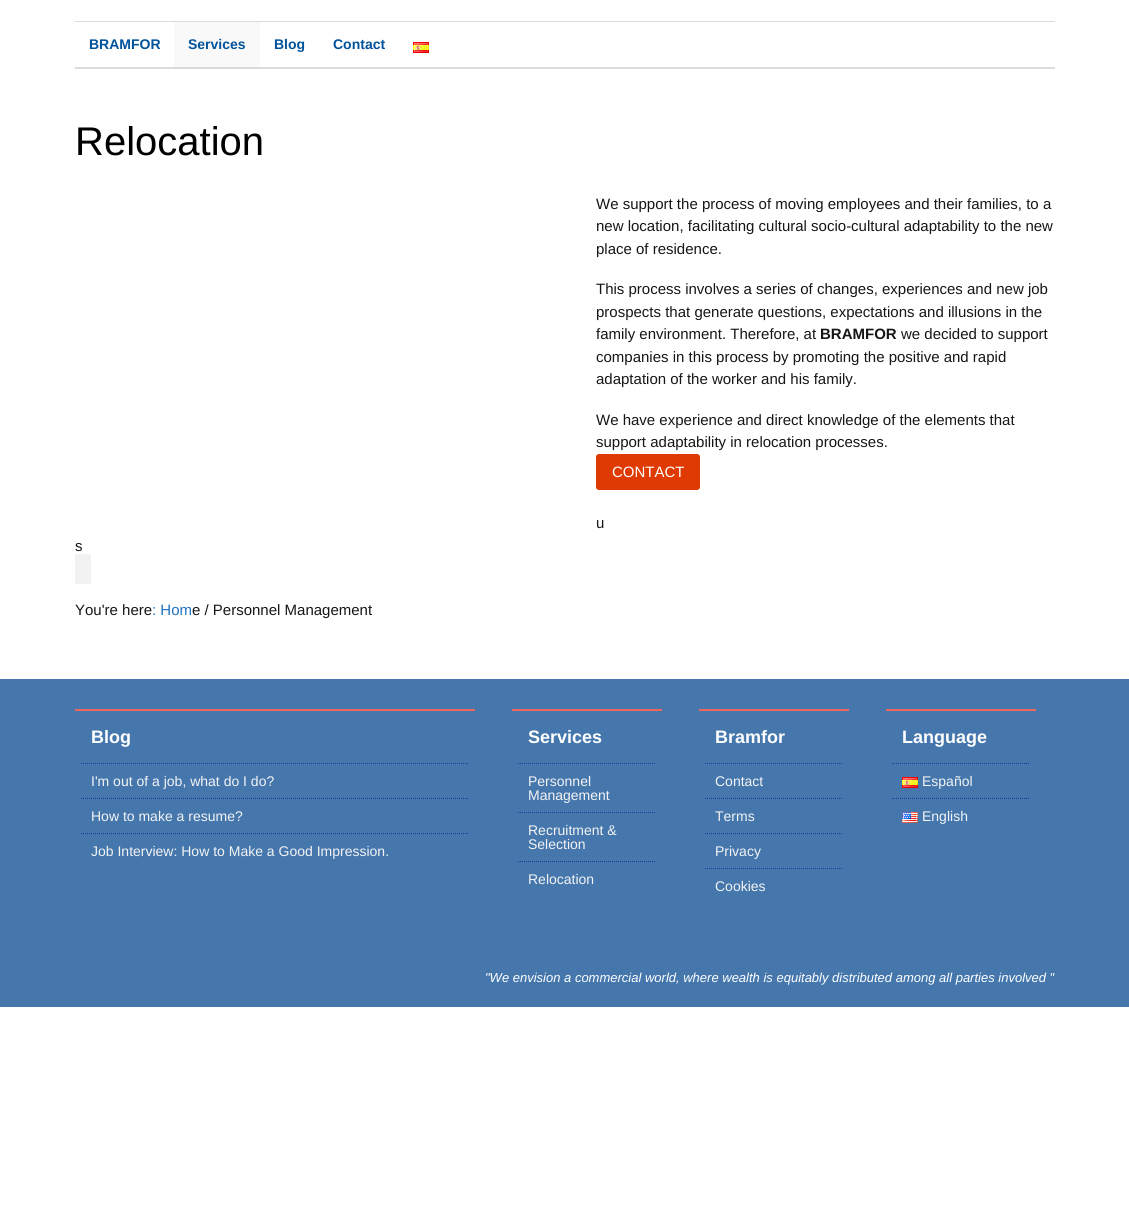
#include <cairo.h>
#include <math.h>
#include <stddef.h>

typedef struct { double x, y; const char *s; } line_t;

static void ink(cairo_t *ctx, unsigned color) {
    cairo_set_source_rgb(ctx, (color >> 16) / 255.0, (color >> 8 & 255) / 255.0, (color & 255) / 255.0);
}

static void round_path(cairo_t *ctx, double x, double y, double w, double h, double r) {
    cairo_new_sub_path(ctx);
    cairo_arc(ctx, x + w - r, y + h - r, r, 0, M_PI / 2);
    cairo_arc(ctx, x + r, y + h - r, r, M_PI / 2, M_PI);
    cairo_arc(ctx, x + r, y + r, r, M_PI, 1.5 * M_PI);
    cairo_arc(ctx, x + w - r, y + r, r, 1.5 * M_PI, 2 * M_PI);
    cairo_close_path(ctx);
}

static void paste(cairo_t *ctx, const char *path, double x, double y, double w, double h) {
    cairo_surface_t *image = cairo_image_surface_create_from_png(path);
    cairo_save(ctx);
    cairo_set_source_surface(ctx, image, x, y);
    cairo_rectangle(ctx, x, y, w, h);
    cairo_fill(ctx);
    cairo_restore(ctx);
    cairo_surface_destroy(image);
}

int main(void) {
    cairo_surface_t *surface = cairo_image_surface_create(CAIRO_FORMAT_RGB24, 1129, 1230);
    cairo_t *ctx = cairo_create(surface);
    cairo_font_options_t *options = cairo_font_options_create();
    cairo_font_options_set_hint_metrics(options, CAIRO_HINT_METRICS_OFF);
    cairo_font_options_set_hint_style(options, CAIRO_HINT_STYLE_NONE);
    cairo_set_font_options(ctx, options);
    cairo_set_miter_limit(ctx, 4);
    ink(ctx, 0xFFFFFF);
    cairo_paint(ctx);
    ink(ctx, 0xDBDBDB);
    cairo_rectangle(ctx, 75, 21, 980, 1);
    cairo_fill(ctx);
    cairo_rectangle(ctx, 75, 67, 980, 2);
    cairo_fill(ctx);
    cairo_select_font_face(ctx, "Liberation Sans", CAIRO_FONT_SLANT_NORMAL, CAIRO_FONT_WEIGHT_BOLD);
    cairo_set_font_size(ctx, 14);
    ink(ctx, 0x00529B);
    cairo_move_to(ctx, 89, 49);
    cairo_show_text(ctx, "BRAMFOR");
    ink(ctx, 0xF9F9F9);
    cairo_rectangle(ctx, 174, 22, 86, 45);
    cairo_fill(ctx);
    ink(ctx, 0x00529B);
    {
        static const line_t items[] = {
            {188, 49, "Services"},
            {274, 49, "Blog"},
            {333, 49, "Contact"},
        };
        for (size_t i = 0; i < sizeof items / sizeof *items; i++) {
            cairo_move_to(ctx, items[i].x, items[i].y);
            cairo_show_text(ctx, items[i].s);
        }
    }
    paste(ctx, "media/1.png", 413, 42, 16, 11);
    cairo_select_font_face(ctx, "Liberation Sans", CAIRO_FONT_SLANT_NORMAL, CAIRO_FONT_WEIGHT_NORMAL);
    cairo_set_font_size(ctx, 40);
    ink(ctx, 0x000000);
    cairo_move_to(ctx, 75, 155);
    cairo_show_text(ctx, "Relocation");
    cairo_set_font_size(ctx, 15);
    ink(ctx, 0x161616);
    {
        static const line_t items[] = {
            {596, 209, "We support the process of moving employees and their families, to a"},
            {596, 231, "new location, facilitating cultural socio-cultural adaptability to the new"},
            {596, 254, "place of residence."},
            {596, 294, "This process involves a series of changes, experiences and new job"},
            {596, 317, "prospects that generate questions, expectations and illusions in the"},
            {596, 339, "family environment. Therefore, at"},
        };
        for (size_t i = 0; i < sizeof items / sizeof *items; i++) {
            cairo_move_to(ctx, items[i].x, items[i].y);
            cairo_show_text(ctx, items[i].s);
        }
    }
    cairo_select_font_face(ctx, "Liberation Sans", CAIRO_FONT_SLANT_NORMAL, CAIRO_FONT_WEIGHT_BOLD);
    cairo_move_to(ctx, 820, 339);
    cairo_show_text(ctx, "BRAMFOR");
    cairo_select_font_face(ctx, "Liberation Sans", CAIRO_FONT_SLANT_NORMAL, CAIRO_FONT_WEIGHT_NORMAL);
    {
        static const line_t items[] = {
            {901, 339, "we decided to support"},
            {596, 362, "companies in this process by promoting the positive and rapid"},
            {596, 384, "adaptation of the worker and his family."},
            {596, 425, "We have experience and direct knowledge of the elements that"},
            {596, 447, "support adaptability in relocation processes."},
        };
        for (size_t i = 0; i < sizeof items / sizeof *items; i++) {
            cairo_move_to(ctx, items[i].x, items[i].y);
            cairo_show_text(ctx, items[i].s);
        }
    }
    ink(ctx, 0xDF3A01);
    round_path(ctx, 596.5, 454.5, 103, 35, 2.5);
    cairo_fill_preserve(ctx);
    cairo_set_line_width(ctx, 1);
    cairo_stroke(ctx);
    ink(ctx, 0xFFFFFF);
    cairo_move_to(ctx, 612, 477);
    cairo_show_text(ctx, "CONTACT");
    ink(ctx, 0x161616);
    cairo_move_to(ctx, 596, 528);
    cairo_show_text(ctx, "u");
    cairo_move_to(ctx, 75, 551);
    cairo_show_text(ctx, "s");
    ink(ctx, 0xF2F2F2);
    cairo_rectangle(ctx, 75, 554, 16, 30);
    cairo_fill(ctx);
    ink(ctx, 0x161616);
    cairo_move_to(ctx, 75, 615);
    cairo_show_text(ctx, "You're here");
    ink(ctx, 0x1E73BE);
    cairo_move_to(ctx, 152, 615);
    cairo_show_text(ctx, ": Hom");
    ink(ctx, 0x161616);
    cairo_move_to(ctx, 192, 615);
    cairo_show_text(ctx, "e / Personnel Management");
    ink(ctx, 0x4577AD);
    cairo_rectangle(ctx, 0, 679, 1129, 328);
    cairo_fill(ctx);
    ink(ctx, 0xEB685B);
    cairo_rectangle(ctx, 75, 709, 400, 2);
    cairo_fill(ctx);
    cairo_select_font_face(ctx, "Liberation Sans", CAIRO_FONT_SLANT_NORMAL, CAIRO_FONT_WEIGHT_BOLD);
    cairo_set_font_size(ctx, 18);
    ink(ctx, 0xFFFFFF);
    cairo_move_to(ctx, 91, 743);
    cairo_show_text(ctx, "Blog");
    cairo_new_path(ctx);
    cairo_move_to(ctx, 81, 763.5);
    cairo_line_to(ctx, 469, 763.5);
    ink(ctx, 0x1F339C);
    cairo_set_dash(ctx, (double[]){1, 1}, 2, 0);
    cairo_stroke(ctx);
    cairo_select_font_face(ctx, "Liberation Sans", CAIRO_FONT_SLANT_NORMAL, CAIRO_FONT_WEIGHT_NORMAL);
    cairo_set_font_size(ctx, 14);
    ink(ctx, 0xF3F3F3);
    cairo_move_to(ctx, 91, 786);
    cairo_show_text(ctx, "I'm out of a job, what do I do?");
    cairo_new_path(ctx);
    cairo_move_to(ctx, 81, 798.5);
    cairo_line_to(ctx, 469, 798.5);
    ink(ctx, 0x1F339C);
    cairo_stroke(ctx);
    ink(ctx, 0xF3F3F3);
    cairo_move_to(ctx, 91, 821);
    cairo_show_text(ctx, "How to make a resume?");
    cairo_new_path(ctx);
    cairo_move_to(ctx, 81, 833.5);
    cairo_line_to(ctx, 469, 833.5);
    ink(ctx, 0x1F339C);
    cairo_stroke(ctx);
    ink(ctx, 0xF3F3F3);
    cairo_move_to(ctx, 91, 856);
    cairo_show_text(ctx, "Job Interview: How to Make a Good Impression.");
    ink(ctx, 0xEB685B);
    cairo_rectangle(ctx, 512, 709, 150, 2);
    cairo_fill(ctx);
    cairo_select_font_face(ctx, "Liberation Sans", CAIRO_FONT_SLANT_NORMAL, CAIRO_FONT_WEIGHT_BOLD);
    cairo_set_font_size(ctx, 18);
    ink(ctx, 0xFFFFFF);
    cairo_move_to(ctx, 528, 743);
    cairo_show_text(ctx, "Services");
    cairo_new_path(ctx);
    cairo_move_to(ctx, 518, 763.5);
    cairo_line_to(ctx, 656, 763.5);
    ink(ctx, 0x1F339C);
    cairo_stroke(ctx);
    cairo_select_font_face(ctx, "Liberation Sans", CAIRO_FONT_SLANT_NORMAL, CAIRO_FONT_WEIGHT_NORMAL);
    cairo_set_font_size(ctx, 14);
    ink(ctx, 0xF3F3F3);
    cairo_move_to(ctx, 528, 786);
    cairo_show_text(ctx, "Personnel");
    cairo_move_to(ctx, 528, 800);
    cairo_show_text(ctx, "Management");
    cairo_new_path(ctx);
    cairo_move_to(ctx, 518, 812.5);
    cairo_line_to(ctx, 656, 812.5);
    ink(ctx, 0x1F339C);
    cairo_stroke(ctx);
    ink(ctx, 0xF3F3F3);
    cairo_move_to(ctx, 528, 835);
    cairo_show_text(ctx, "Recruitment &");
    cairo_move_to(ctx, 528, 849);
    cairo_show_text(ctx, "Selection");
    cairo_new_path(ctx);
    cairo_move_to(ctx, 518, 861.5);
    cairo_line_to(ctx, 656, 861.5);
    ink(ctx, 0x1F339C);
    cairo_stroke(ctx);
    ink(ctx, 0xF3F3F3);
    cairo_move_to(ctx, 528, 884);
    cairo_show_text(ctx, "Relocation");
    ink(ctx, 0xEB685B);
    cairo_rectangle(ctx, 699, 709, 150, 2);
    cairo_fill(ctx);
    cairo_select_font_face(ctx, "Liberation Sans", CAIRO_FONT_SLANT_NORMAL, CAIRO_FONT_WEIGHT_BOLD);
    cairo_set_font_size(ctx, 18);
    ink(ctx, 0xFFFFFF);
    cairo_move_to(ctx, 715, 743);
    cairo_show_text(ctx, "Bramfor");
    cairo_new_path(ctx);
    cairo_move_to(ctx, 705, 763.5);
    cairo_line_to(ctx, 843, 763.5);
    ink(ctx, 0x1F339C);
    cairo_stroke(ctx);
    cairo_select_font_face(ctx, "Liberation Sans", CAIRO_FONT_SLANT_NORMAL, CAIRO_FONT_WEIGHT_NORMAL);
    cairo_set_font_size(ctx, 14);
    ink(ctx, 0xF3F3F3);
    cairo_move_to(ctx, 715, 786);
    cairo_show_text(ctx, "Contact");
    cairo_new_path(ctx);
    cairo_move_to(ctx, 705, 798.5);
    cairo_line_to(ctx, 843, 798.5);
    ink(ctx, 0x1F339C);
    cairo_stroke(ctx);
    ink(ctx, 0xF3F3F3);
    cairo_move_to(ctx, 715, 821);
    cairo_show_text(ctx, "Terms");
    cairo_new_path(ctx);
    cairo_move_to(ctx, 705, 833.5);
    cairo_line_to(ctx, 843, 833.5);
    ink(ctx, 0x1F339C);
    cairo_stroke(ctx);
    ink(ctx, 0xF3F3F3);
    cairo_move_to(ctx, 715, 856);
    cairo_show_text(ctx, "Privacy");
    cairo_new_path(ctx);
    cairo_move_to(ctx, 705, 868.5);
    cairo_line_to(ctx, 843, 868.5);
    ink(ctx, 0x1F339C);
    cairo_stroke(ctx);
    ink(ctx, 0xF3F3F3);
    cairo_move_to(ctx, 715, 891);
    cairo_show_text(ctx, "Cookies");
    ink(ctx, 0xEB685B);
    cairo_rectangle(ctx, 886, 709, 150, 2);
    cairo_fill(ctx);
    cairo_select_font_face(ctx, "Liberation Sans", CAIRO_FONT_SLANT_NORMAL, CAIRO_FONT_WEIGHT_BOLD);
    cairo_set_font_size(ctx, 18);
    ink(ctx, 0xFFFFFF);
    cairo_move_to(ctx, 902, 743);
    cairo_show_text(ctx, "Language");
    cairo_new_path(ctx);
    cairo_move_to(ctx, 892, 763.5);
    cairo_line_to(ctx, 1030, 763.5);
    ink(ctx, 0x1F339C);
    cairo_stroke(ctx);
    paste(ctx, "media/1.png", 902, 777, 16, 11);
    cairo_select_font_face(ctx, "Liberation Sans", CAIRO_FONT_SLANT_NORMAL, CAIRO_FONT_WEIGHT_NORMAL);
    cairo_set_font_size(ctx, 14);
    ink(ctx, 0xF3F3F3);
    cairo_move_to(ctx, 922, 786);
    cairo_show_text(ctx, "Español");
    cairo_new_path(ctx);
    cairo_move_to(ctx, 892, 798.5);
    cairo_line_to(ctx, 1030, 798.5);
    ink(ctx, 0x1F339C);
    cairo_stroke(ctx);
    paste(ctx, "media/2.png", 902, 812, 16, 11);
    ink(ctx, 0xF3F3F3);
    cairo_move_to(ctx, 922, 821);
    cairo_show_text(ctx, "English");
    cairo_select_font_face(ctx, "Liberation Sans", CAIRO_FONT_SLANT_ITALIC, CAIRO_FONT_WEIGHT_NORMAL);
    cairo_set_font_size(ctx, 13);
    ink(ctx, 0xFFFFFF);
    cairo_move_to(ctx, 485, 982);
    cairo_show_text(ctx, "\"We envision a commercial world, where wealth is equitably distributed among all parties involved \"");
    cairo_surface_write_to_png(surface, "image.png");
    cairo_font_options_destroy(options);
    cairo_destroy(ctx);
    cairo_surface_destroy(surface);
    return 0;
}
